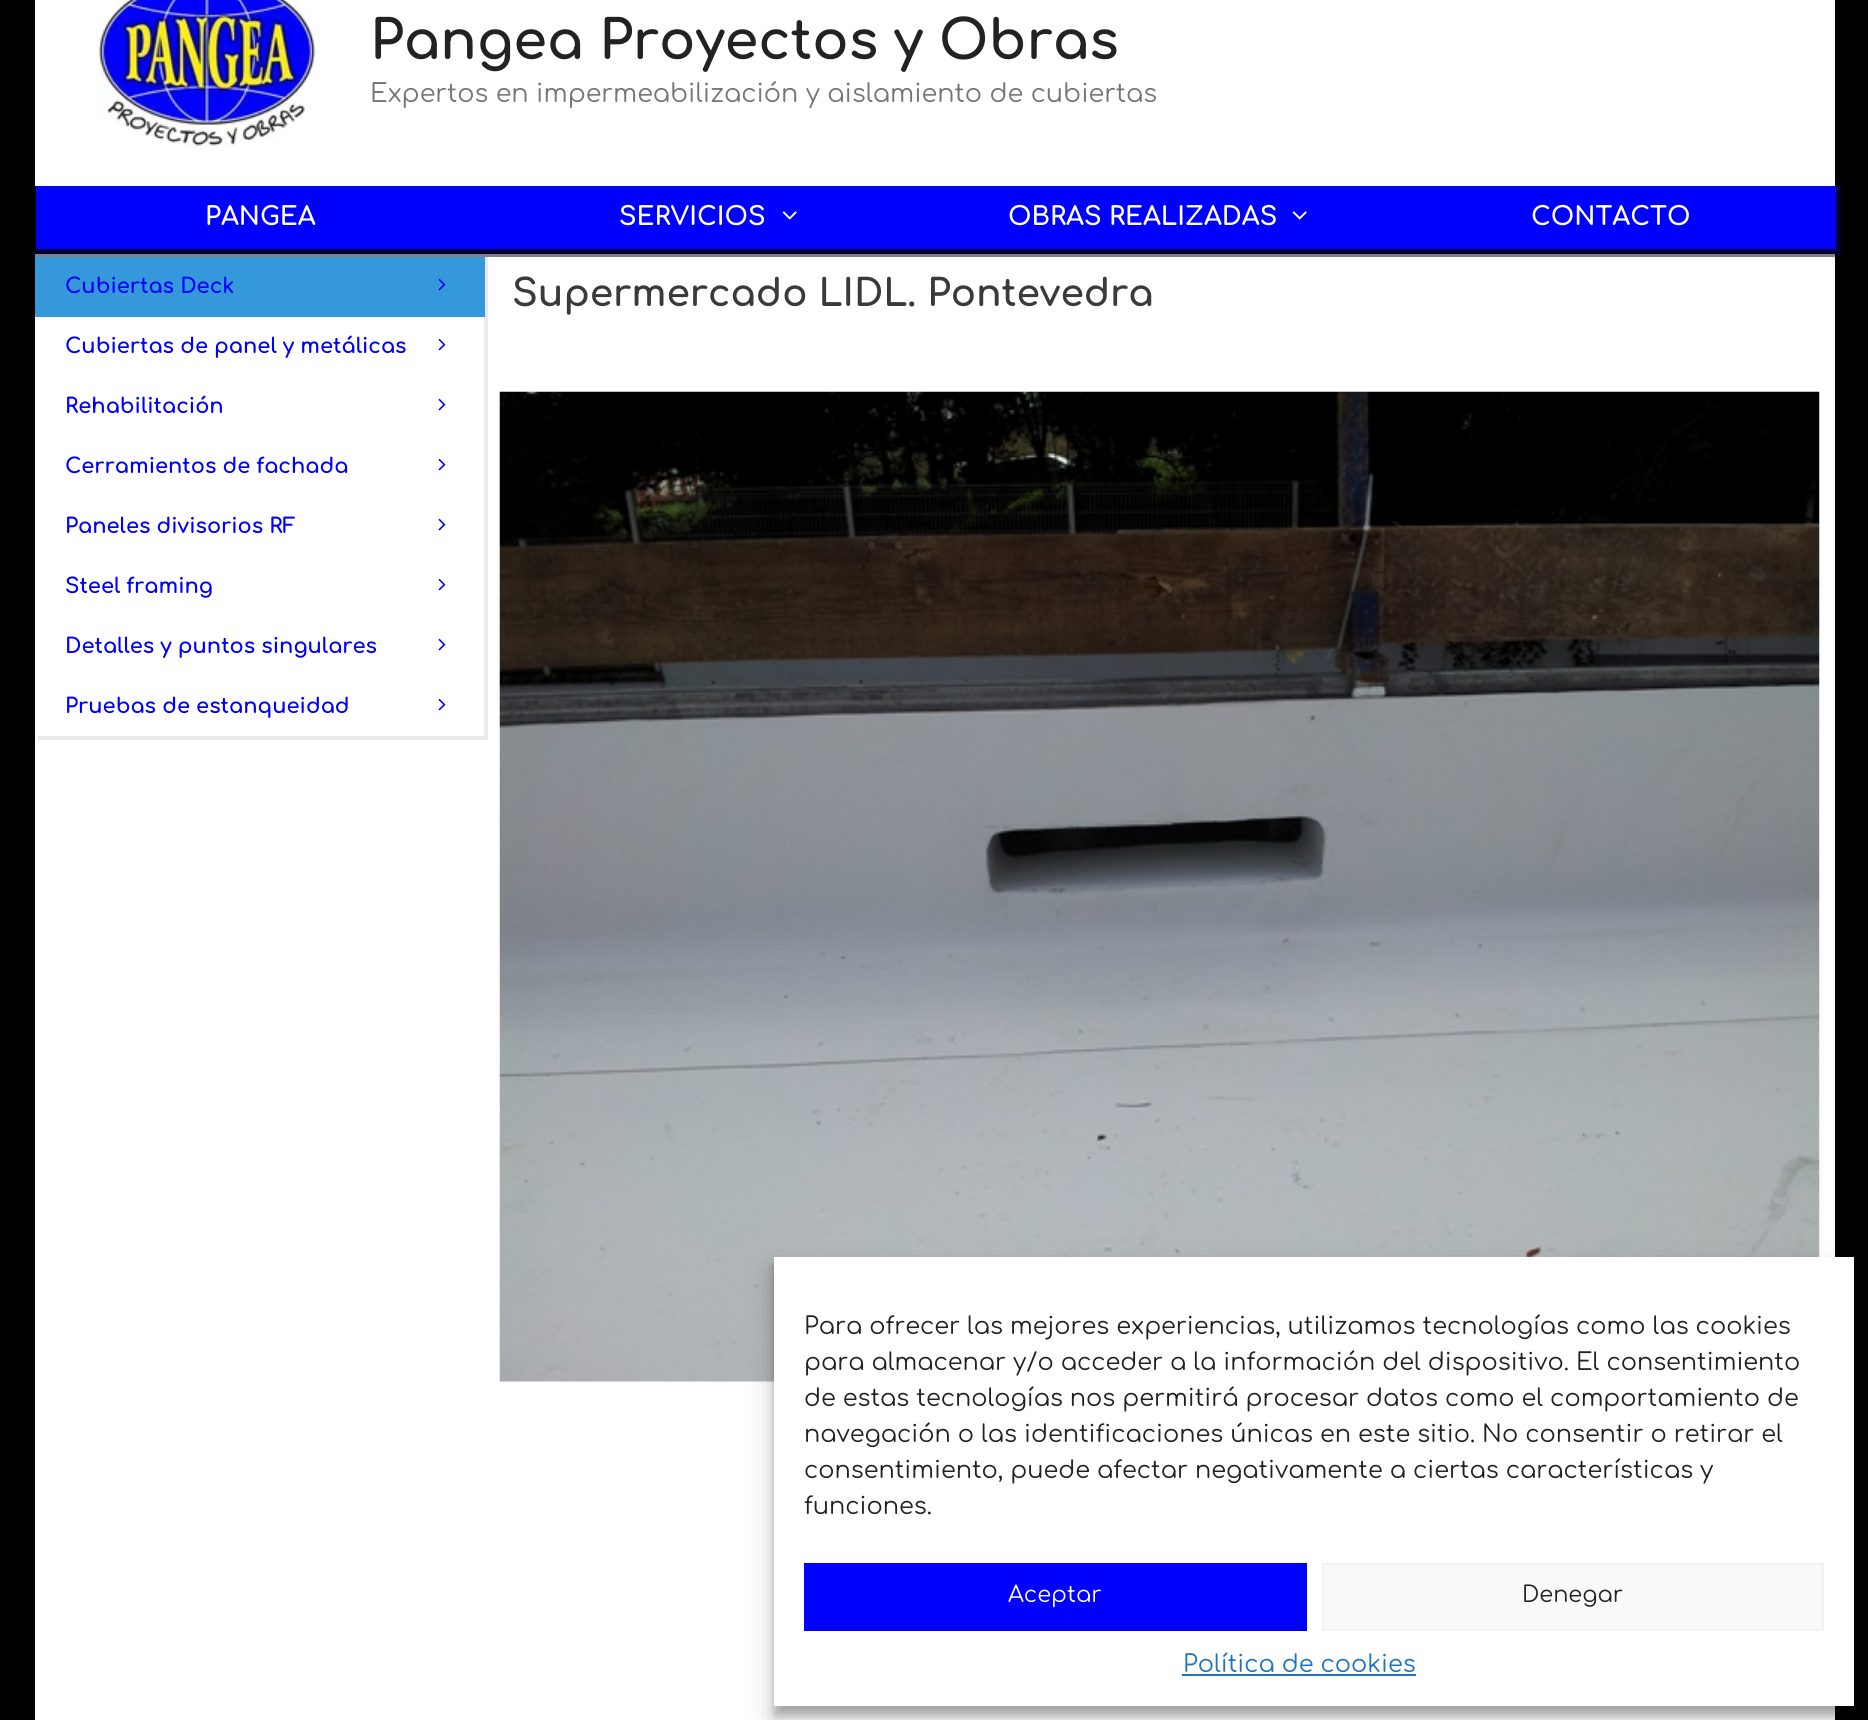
#include <cairo.h>
#include <math.h>
#include <stddef.h>

typedef struct { double x, y; const char *s; } line_t;
typedef struct { double x, y, w, h; unsigned color; } box_t;

static void ink(cairo_t *ctx, unsigned color) {
    cairo_set_source_rgb(ctx, (color >> 16) / 255.0, (color >> 8 & 255) / 255.0, (color & 255) / 255.0);
}

static void round_path(cairo_t *ctx, double x, double y, double w, double h, double r) {
    cairo_new_sub_path(ctx);
    cairo_arc(ctx, x + w - r, y + h - r, r, 0, M_PI / 2);
    cairo_arc(ctx, x + r, y + h - r, r, M_PI / 2, M_PI);
    cairo_arc(ctx, x + r, y + r, r, M_PI, 1.5 * M_PI);
    cairo_arc(ctx, x + w - r, y + r, r, 1.5 * M_PI, 2 * M_PI);
    cairo_close_path(ctx);
}

static void blur_box(cairo_t *ctx, double x, double y, double w, double h, double r, double blur, double alpha) {
    cairo_push_group_with_content(ctx, CAIRO_CONTENT_ALPHA);
    cairo_set_operator(ctx, CAIRO_OPERATOR_SOURCE);
    for (int i = 15; i >= -15 && fmin(w, h) + blur * i / 3 > 0; i -= 2) {
        double e = blur * i / 6;
        cairo_set_source_rgba(ctx, 0, 0, 0, alpha * erfc((i - 1) / 8.5) / 2);
        round_path(ctx, x - e, y - e, w + 2 * e, h + 2 * e, fmax(0, fmin(r + e + blur * .6, fmin(w, h) / 2 + e)));
        cairo_fill(ctx);
    }
    cairo_pattern_t *soft = cairo_pop_group(ctx);
    cairo_mask(ctx, soft);
    cairo_pattern_destroy(soft);
}

static void paste(cairo_t *ctx, const char *path, double x, double y, double w, double h) {
    cairo_surface_t *image = cairo_image_surface_create_from_png(path);
    cairo_save(ctx);
    cairo_set_source_surface(ctx, image, x, y);
    cairo_rectangle(ctx, x, y, w, h);
    cairo_fill(ctx);
    cairo_restore(ctx);
    cairo_surface_destroy(image);
}

int main(void) {
    cairo_surface_t *surface = cairo_image_surface_create(CAIRO_FORMAT_RGB24, 1868, 1720);
    cairo_t *ctx = cairo_create(surface);
    cairo_font_options_t *options = cairo_font_options_create();
    cairo_font_options_set_hint_metrics(options, CAIRO_HINT_METRICS_OFF);
    cairo_font_options_set_hint_style(options, CAIRO_HINT_STYLE_NONE);
    cairo_set_font_options(ctx, options);
    cairo_set_miter_limit(ctx, 4);
    ink(ctx, 0x000000);
    cairo_paint(ctx);
    ink(ctx, 0xFFFFFF);
    cairo_rectangle(ctx, 35, 0, 1800, 186);
    cairo_fill(ctx);
    paste(ctx, "media/1.png", 94, 0, 222, 149);
    cairo_select_font_face(ctx, "Comfortaa", CAIRO_FONT_SLANT_NORMAL, CAIRO_FONT_WEIGHT_BOLD);
    cairo_set_font_size(ctx, 54);
    ink(ctx, 0x222222);
    cairo_move_to(ctx, 370, 59);
    cairo_show_text(ctx, "Pangea Proyectos y Obras");
    cairo_select_font_face(ctx, "Comfortaa", CAIRO_FONT_SLANT_NORMAL, CAIRO_FONT_WEIGHT_NORMAL);
    cairo_set_font_size(ctx, 25.5);
    ink(ctx, 0x757575);
    cairo_move_to(ctx, 370, 102);
    cairo_show_text(ctx, "Expertos en impermeabilización y aislamiento de cubiertas");
    {
        static const box_t items[] = {
            {36, 186, 1800, 63, 0x0000FF},
            {1836, 186, 5, 68, 0x000037},
            {36, 249, 1805, 5, 0x000037},
        };
        for (size_t i = 0; i < sizeof items / sizeof *items; i++) {
            ink(ctx, items[i].color);
            cairo_rectangle(ctx, items[i].x, items[i].y, items[i].w, items[i].h);
            cairo_fill(ctx);
        }
    }
    cairo_select_font_face(ctx, "Comfortaa", CAIRO_FONT_SLANT_NORMAL, CAIRO_FONT_WEIGHT_BOLD);
    ink(ctx, 0xFFFFFF);
    cairo_move_to(ctx, 205, 225);
    cairo_show_text(ctx, "PANGEA");
    cairo_move_to(ctx, 619, 225);
    cairo_show_text(ctx, "SERVICIOS");
    paste(ctx, "media/2.png", 782, 211, 15, 9);
    cairo_move_to(ctx, 1008, 225);
    cairo_show_text(ctx, "OBRAS REALIZADAS");
    paste(ctx, "media/2.png", 1292, 211, 15, 9);
    cairo_move_to(ctx, 1531, 225);
    cairo_show_text(ctx, "CONTACTO");
    cairo_rectangle(ctx, 35, 257, 1800, 1463);
    cairo_fill(ctx);
    ink(ctx, 0xEAEAEA);
    cairo_new_path(ctx);
    cairo_move_to(ctx, 38, 736);
    cairo_line_to(ctx, 38, 740);
    cairo_line_to(ctx, 488, 740);
    cairo_line_to(ctx, 488, 257);
    cairo_line_to(ctx, 484, 257);
    cairo_line_to(ctx, 484, 736);
    cairo_close_path(ctx);
    cairo_fill(ctx);
    ink(ctx, 0x3498DB);
    cairo_rectangle(ctx, 35, 257, 450, 60);
    cairo_fill(ctx);
    cairo_set_font_size(ctx, 21);
    ink(ctx, 0x0000FF);
    cairo_move_to(ctx, 65, 293);
    cairo_show_text(ctx, "Cubiertas Deck");
    paste(ctx, "media/3.png", 438, 278, 8, 13);
    cairo_move_to(ctx, 65, 353);
    cairo_show_text(ctx, "Cubiertas de panel y metálicas");
    paste(ctx, "media/4.png", 438, 338, 8, 13);
    cairo_move_to(ctx, 65, 413);
    cairo_show_text(ctx, "Rehabilitación");
    paste(ctx, "media/4.png", 438, 398, 8, 13);
    cairo_move_to(ctx, 65, 473);
    cairo_show_text(ctx, "Cerramientos de fachada");
    paste(ctx, "media/4.png", 438, 458, 8, 13);
    cairo_move_to(ctx, 65, 533);
    cairo_show_text(ctx, "Paneles divisorios RF");
    paste(ctx, "media/4.png", 438, 518, 8, 13);
    cairo_move_to(ctx, 65, 593);
    cairo_show_text(ctx, "Steel framing");
    paste(ctx, "media/4.png", 438, 578, 8, 13);
    cairo_move_to(ctx, 65, 653);
    cairo_show_text(ctx, "Detalles y puntos singulares");
    paste(ctx, "media/4.png", 438, 638, 8, 13);
    cairo_move_to(ctx, 65, 713);
    cairo_show_text(ctx, "Pruebas de estanqueidad");
    paste(ctx, "media/4.png", 438, 698, 8, 13);
    ink(ctx, 0x808080);
    cairo_rectangle(ctx, 35, 254, 1800, 3);
    cairo_fill(ctx);
    cairo_set_font_size(ctx, 37.5);
    ink(ctx, 0x3A3A3A);
    cairo_move_to(ctx, 512, 306);
    cairo_show_text(ctx, "Supermercado LIDL. Pontevedra");
    paste(ctx, "media/5.png", 499, 391, 1321, 991);
    ink(ctx, 0x000000);
    blur_box(ctx, 774, 1266, 1080, 449, 0, 4.5, 0.23);
    blur_box(ctx, 774, 1272, 1080, 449, 0, 15, 0.19);
    ink(ctx, 0xFFFFFF);
    cairo_rectangle(ctx, 774, 1257, 1080, 449);
    cairo_fill(ctx);
    cairo_select_font_face(ctx, "Comfortaa", CAIRO_FONT_SLANT_NORMAL, CAIRO_FONT_WEIGHT_NORMAL);
    cairo_set_font_size(ctx, 24);
    ink(ctx, 0x222222);
    {
        static const line_t items[] = {
            {804, 1334, "Para ofrecer las mejores experiencias, utilizamos tecnologías como las cookies"},
            {804, 1370, "para almacenar y/o acceder a la información del dispositivo. El consentimiento"},
            {804, 1406, "de estas tecnologías nos permitirá procesar datos como el comportamiento de"},
            {804, 1442, "navegación o las identificaciones únicas en este sitio. No consentir o retirar el"},
            {804, 1478, "consentimiento, puede afectar negativamente a ciertas características y"},
            {804, 1514, "funciones."},
        };
        for (size_t i = 0; i < sizeof items / sizeof *items; i++) {
            cairo_move_to(ctx, items[i].x, items[i].y);
            cairo_show_text(ctx, items[i].s);
        }
    }
    ink(ctx, 0x0000FF);
    cairo_rectangle(ctx, 804, 1563, 503, 68);
    cairo_fill(ctx);
    cairo_set_font_size(ctx, 22.5);
    ink(ctx, 0xFFFFFF);
    cairo_move_to(ctx, 1008, 1602);
    cairo_show_text(ctx, "Aceptar");
    ink(ctx, 0xF9F9F9);
    cairo_rectangle(ctx, 1323, 1564, 500, 66);
    cairo_fill_preserve(ctx);
    ink(ctx, 0xF2F2F2);
    cairo_stroke(ctx);
    ink(ctx, 0x222222);
    cairo_move_to(ctx, 1522, 1602);
    cairo_show_text(ctx, "Denegar");
    cairo_set_font_size(ctx, 24);
    ink(ctx, 0x1E73BE);
    cairo_move_to(ctx, 1183, 1672);
    cairo_show_text(ctx, "Política de cookies");
    cairo_rectangle(ctx, 1182, 1674, 234, 2);
    cairo_fill(ctx);
    cairo_surface_write_to_png(surface, "image.png");
    cairo_font_options_destroy(options);
    cairo_destroy(ctx);
    cairo_surface_destroy(surface);
    return 0;
}
